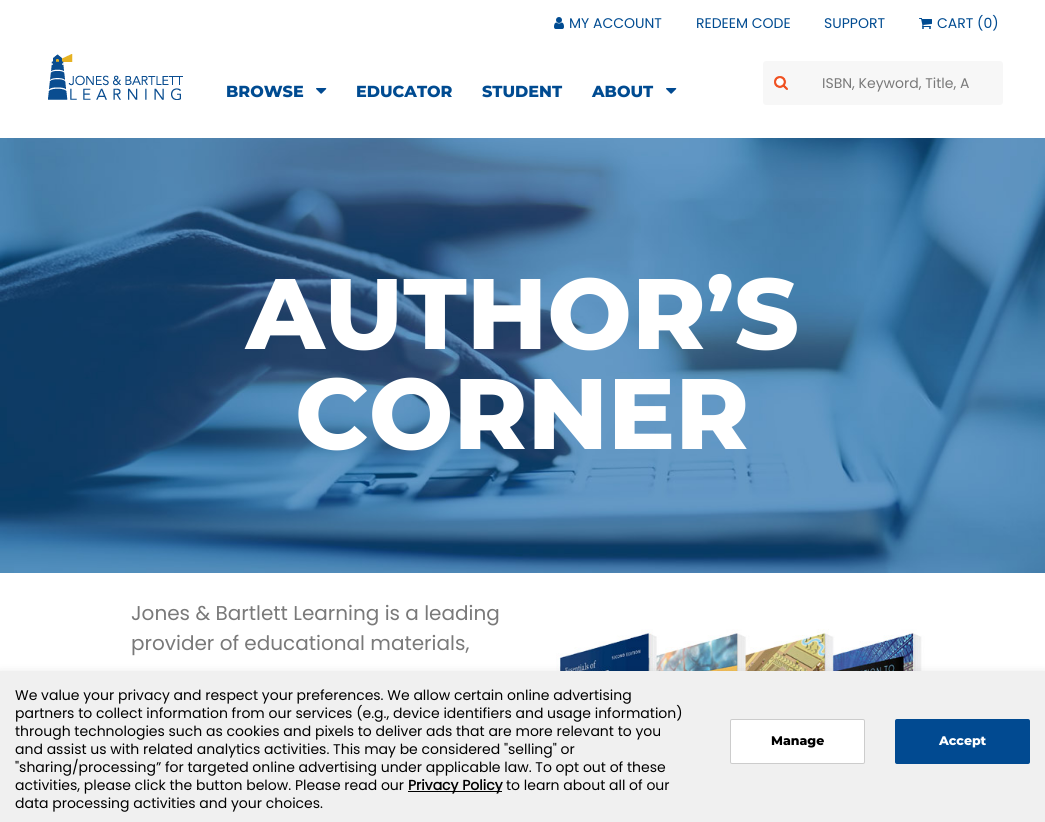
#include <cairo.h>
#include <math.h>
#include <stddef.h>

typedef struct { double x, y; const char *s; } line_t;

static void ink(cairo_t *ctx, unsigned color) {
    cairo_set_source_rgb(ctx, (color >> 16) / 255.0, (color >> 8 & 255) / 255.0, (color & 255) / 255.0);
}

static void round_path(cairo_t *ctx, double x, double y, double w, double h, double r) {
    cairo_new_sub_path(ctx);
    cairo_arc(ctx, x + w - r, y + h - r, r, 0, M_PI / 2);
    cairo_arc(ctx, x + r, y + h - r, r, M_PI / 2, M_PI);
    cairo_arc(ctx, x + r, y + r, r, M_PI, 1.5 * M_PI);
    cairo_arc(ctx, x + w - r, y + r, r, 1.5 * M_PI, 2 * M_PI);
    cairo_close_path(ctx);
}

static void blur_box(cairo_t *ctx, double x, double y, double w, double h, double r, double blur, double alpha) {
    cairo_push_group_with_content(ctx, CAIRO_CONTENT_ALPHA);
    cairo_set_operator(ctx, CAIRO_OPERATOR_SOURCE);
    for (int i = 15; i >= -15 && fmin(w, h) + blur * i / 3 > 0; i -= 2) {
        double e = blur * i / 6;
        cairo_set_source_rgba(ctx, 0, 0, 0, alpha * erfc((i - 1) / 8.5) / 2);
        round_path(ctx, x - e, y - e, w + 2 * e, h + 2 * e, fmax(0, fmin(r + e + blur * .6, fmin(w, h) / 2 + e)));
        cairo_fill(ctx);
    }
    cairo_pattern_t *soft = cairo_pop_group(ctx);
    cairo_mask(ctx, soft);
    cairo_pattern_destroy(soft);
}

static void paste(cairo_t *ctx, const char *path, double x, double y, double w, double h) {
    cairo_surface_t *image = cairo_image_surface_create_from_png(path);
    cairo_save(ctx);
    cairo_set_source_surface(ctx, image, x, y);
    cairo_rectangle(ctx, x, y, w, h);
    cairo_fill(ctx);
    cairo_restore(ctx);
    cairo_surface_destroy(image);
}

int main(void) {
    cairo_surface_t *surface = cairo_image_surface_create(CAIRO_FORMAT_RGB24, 1045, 822);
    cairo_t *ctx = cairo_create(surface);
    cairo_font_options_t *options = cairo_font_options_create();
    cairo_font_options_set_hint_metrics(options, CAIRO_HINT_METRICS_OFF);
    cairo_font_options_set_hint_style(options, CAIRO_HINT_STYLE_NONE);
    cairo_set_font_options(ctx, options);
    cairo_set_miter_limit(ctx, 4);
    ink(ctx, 0xFFFFFF);
    cairo_paint(ctx);
    paste(ctx, "media/1.png", 554, 17, 10, 12);
    cairo_select_font_face(ctx, "Poppins", CAIRO_FONT_SLANT_NORMAL, CAIRO_FONT_WEIGHT_NORMAL);
    cairo_set_font_size(ctx, 14);
    ink(ctx, 0x004B91);
    {
        static const line_t items[] = {
            {569, 28, "MY ACCOUNT"},
            {696, 28, "REDEEM CODE"},
            {824, 28, "SUPPORT"},
        };
        for (size_t i = 0; i < sizeof items / sizeof *items; i++) {
            cairo_move_to(ctx, items[i].x, items[i].y);
            cairo_show_text(ctx, items[i].s);
        }
    }
    paste(ctx, "media/2.png", 919, 18, 13, 11);
    cairo_move_to(ctx, 937, 28);
    cairo_show_text(ctx, "CART (0)");
    paste(ctx, "media/3.png", 48, 54, 135, 46);
    cairo_select_font_face(ctx, "Montserrat Thin", CAIRO_FONT_SLANT_NORMAL, CAIRO_FONT_WEIGHT_NORMAL);
    cairo_set_font_size(ctx, 16);
    cairo_move_to(ctx, 226, 97);
    cairo_show_text(ctx, "BROWSE");
    paste(ctx, "media/4.png", 316, 88, 11, 6);
    {
        static const line_t items[] = {
            {356, 97, "EDUCATOR"},
            {482, 97, "STUDENT"},
            {592, 97, "ABOUT"},
        };
        for (size_t i = 0; i < sizeof items / sizeof *items; i++) {
            cairo_move_to(ctx, items[i].x, items[i].y);
            cairo_show_text(ctx, items[i].s);
        }
    }
    paste(ctx, "media/4.png", 666, 88, 11, 6);
    ink(ctx, 0xF7F7F7);
    round_path(ctx, 763, 61, 240, 44, 3);
    cairo_fill(ctx);
    paste(ctx, "media/5.png", 774, 76, 14, 14);
    cairo_select_font_face(ctx, "Poppins", CAIRO_FONT_SLANT_NORMAL, CAIRO_FONT_WEIGHT_NORMAL);
    cairo_set_font_size(ctx, 14);
    ink(ctx, 0x797979);
    cairo_move_to(ctx, 822, 88);
    cairo_show_text(ctx, "ISBN, Keyword, Title, A");
    paste(ctx, "media/6.png", 0, 138, 1045, 435);
    cairo_select_font_face(ctx, "Montserrat Thin", CAIRO_FONT_SLANT_NORMAL, CAIRO_FONT_WEIGHT_NORMAL);
    cairo_set_font_size(ctx, 100);
    ink(ctx, 0xFFFFFF);
    cairo_move_to(ctx, 246, 349);
    cairo_show_text(ctx, "AUTHOR’S");
    cairo_move_to(ctx, 295, 449);
    cairo_show_text(ctx, "CORNER");
    cairo_select_font_face(ctx, "Poppins", CAIRO_FONT_SLANT_NORMAL, CAIRO_FONT_WEIGHT_NORMAL);
    cairo_set_font_size(ctx, 20);
    ink(ctx, 0x797979);
    cairo_move_to(ctx, 131, 620);
    cairo_show_text(ctx, "Jones & Bartlett Learning is a leading");
    cairo_move_to(ctx, 131, 650);
    cairo_show_text(ctx, "provider of educational materials,");
    paste(ctx, "media/7.png", 556, 629, 369, 42);
    ink(ctx, 0x000000);
    blur_box(ctx, 0, 675, 1045, 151, 0, 6, 0.15);
    ink(ctx, 0xF0F0F0);
    cairo_rectangle(ctx, 0, 671, 1045, 151);
    cairo_fill(ctx);
    cairo_set_font_size(ctx, 14);
    ink(ctx, 0x000000);
    {
        static const line_t items[] = {
            {15, 700, "We value your privacy and respect your preferences. We allow certain online advertising"},
            {15, 718, "partners to collect information from our services (e.g., device identifiers and usage information)"},
            {15, 736, "through technologies such as cookies and pixels to deliver ads that are more relevant to you"},
            {15, 754, "and assist us with related analytics activities. This may be considered \"selling\" or"},
            {15, 772, "\"sharing/processing” for targeted online advertising under applicable law. To opt out of these"},
            {15, 790, "activities, please click the button below. Please read our"},
        };
        for (size_t i = 0; i < sizeof items / sizeof *items; i++) {
            cairo_move_to(ctx, items[i].x, items[i].y);
            cairo_show_text(ctx, items[i].s);
        }
    }
    cairo_rectangle(ctx, 408, 791, 94, 1);
    cairo_fill(ctx);
    cairo_select_font_face(ctx, "Poppins", CAIRO_FONT_SLANT_NORMAL, CAIRO_FONT_WEIGHT_BOLD);
    cairo_move_to(ctx, 408, 790);
    cairo_show_text(ctx, "Privacy Policy");
    cairo_select_font_face(ctx, "Poppins", CAIRO_FONT_SLANT_NORMAL, CAIRO_FONT_WEIGHT_NORMAL);
    cairo_move_to(ctx, 506, 790);
    cairo_show_text(ctx, "to learn about all of our");
    cairo_move_to(ctx, 15, 808);
    cairo_show_text(ctx, "data processing activities and your choices.");
    ink(ctx, 0xFFFFFF);
    round_path(ctx, 730.5, 719.5, 134, 44, 1.5);
    cairo_fill_preserve(ctx);
    ink(ctx, 0xCCCCCC);
    cairo_set_line_width(ctx, 1);
    cairo_stroke(ctx);
    cairo_select_font_face(ctx, "Montserrat Thin", CAIRO_FONT_SLANT_NORMAL, CAIRO_FONT_WEIGHT_NORMAL);
    cairo_set_font_size(ctx, 12.5);
    ink(ctx, 0x000000);
    cairo_move_to(ctx, 771, 745);
    cairo_show_text(ctx, "Manage");
    ink(ctx, 0x014A91);
    round_path(ctx, 895, 719, 135, 45, 2);
    cairo_fill(ctx);
    ink(ctx, 0xFFFFFF);
    cairo_move_to(ctx, 939, 745);
    cairo_show_text(ctx, "Accept");
    cairo_surface_write_to_png(surface, "image.png");
    cairo_font_options_destroy(options);
    cairo_destroy(ctx);
    cairo_surface_destroy(surface);
    return 0;
}
